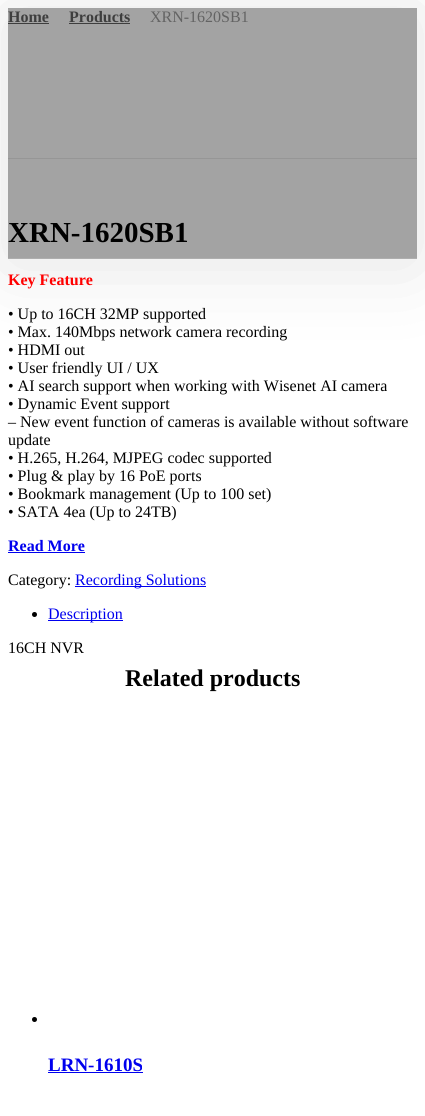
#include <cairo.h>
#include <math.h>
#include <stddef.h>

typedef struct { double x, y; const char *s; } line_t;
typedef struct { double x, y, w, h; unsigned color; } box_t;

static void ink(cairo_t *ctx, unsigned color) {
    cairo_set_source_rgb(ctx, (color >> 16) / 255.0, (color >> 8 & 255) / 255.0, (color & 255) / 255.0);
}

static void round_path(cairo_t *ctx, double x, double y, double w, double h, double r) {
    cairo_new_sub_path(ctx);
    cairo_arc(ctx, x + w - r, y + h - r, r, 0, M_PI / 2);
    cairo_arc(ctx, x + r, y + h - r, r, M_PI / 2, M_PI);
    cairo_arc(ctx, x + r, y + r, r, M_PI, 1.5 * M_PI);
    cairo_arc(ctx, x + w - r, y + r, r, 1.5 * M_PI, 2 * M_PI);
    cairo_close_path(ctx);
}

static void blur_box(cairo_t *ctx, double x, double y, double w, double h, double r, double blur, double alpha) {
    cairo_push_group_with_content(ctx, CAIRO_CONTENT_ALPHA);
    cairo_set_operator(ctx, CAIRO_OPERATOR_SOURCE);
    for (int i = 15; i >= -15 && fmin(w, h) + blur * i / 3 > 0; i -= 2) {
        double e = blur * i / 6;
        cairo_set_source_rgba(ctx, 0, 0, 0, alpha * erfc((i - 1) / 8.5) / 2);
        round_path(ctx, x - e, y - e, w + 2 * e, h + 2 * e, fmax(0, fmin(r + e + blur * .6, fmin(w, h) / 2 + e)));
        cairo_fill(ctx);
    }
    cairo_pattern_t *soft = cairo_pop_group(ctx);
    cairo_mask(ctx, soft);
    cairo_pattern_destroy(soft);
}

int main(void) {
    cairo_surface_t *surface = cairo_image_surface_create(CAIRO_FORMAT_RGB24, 425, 1116);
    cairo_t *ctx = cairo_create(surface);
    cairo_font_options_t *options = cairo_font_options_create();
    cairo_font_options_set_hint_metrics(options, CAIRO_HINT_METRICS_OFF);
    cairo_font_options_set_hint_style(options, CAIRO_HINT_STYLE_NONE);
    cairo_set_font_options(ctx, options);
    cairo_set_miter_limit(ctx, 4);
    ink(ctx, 0xFFFFFF);
    cairo_paint(ctx);
    {
        static const box_t items[] = {
            {8, 8, 409, 250, 0xA3A3A3},
            {8, 158, 409, 1, 0x969696},
            {8, 23, 41, 1, 0x3E3E3E},
            {69, 23, 61, 1, 0x3E3E3E},
        };
        for (size_t i = 0; i < sizeof items / sizeof *items; i++) {
            ink(ctx, items[i].color);
            cairo_rectangle(ctx, items[i].x, items[i].y, items[i].w, items[i].h);
            cairo_fill(ctx);
        }
    }
    cairo_save(ctx);
    cairo_set_fill_rule(ctx, CAIRO_FILL_RULE_EVEN_ODD);
    cairo_new_path(ctx);
    cairo_move_to(ctx, 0, 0);
    cairo_line_to(ctx, 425, 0);
    cairo_line_to(ctx, 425, 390);
    cairo_line_to(ctx, 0, 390);
    cairo_close_path(ctx);
    cairo_move_to(ctx, 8, 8);
    cairo_line_to(ctx, 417, 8);
    cairo_line_to(ctx, 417, 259);
    cairo_line_to(ctx, 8, 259);
    cairo_close_path(ctx);
    cairo_clip(ctx);
    ink(ctx, 0x1B1A1A);
    blur_box(ctx, 8, 13, 409, 251, 0, 41.5, 0.12);
    cairo_restore(ctx);
    ink(ctx, 0xAEAEAE);
    cairo_rectangle(ctx, 8, 258, 409, 1);
    cairo_fill(ctx);
    cairo_select_font_face(ctx, "Liberation Serif", CAIRO_FONT_SLANT_NORMAL, CAIRO_FONT_WEIGHT_BOLD);
    cairo_set_font_size(ctx, 16);
    ink(ctx, 0x3E3E3E);
    cairo_move_to(ctx, 8, 22);
    cairo_show_text(ctx, "Home");
    cairo_move_to(ctx, 69, 22);
    cairo_show_text(ctx, "Products");
    cairo_select_font_face(ctx, "Liberation Serif", CAIRO_FONT_SLANT_NORMAL, CAIRO_FONT_WEIGHT_NORMAL);
    ink(ctx, 0x636363);
    cairo_move_to(ctx, 150, 22);
    cairo_show_text(ctx, "XRN-1620SB1");
    cairo_select_font_face(ctx, "Liberation Serif", CAIRO_FONT_SLANT_NORMAL, CAIRO_FONT_WEIGHT_BOLD);
    cairo_set_font_size(ctx, 29);
    ink(ctx, 0x000000);
    cairo_move_to(ctx, 8, 242);
    cairo_show_text(ctx, "XRN-1620SB1");
    cairo_set_font_size(ctx, 16);
    ink(ctx, 0xFF0000);
    cairo_move_to(ctx, 8, 285);
    cairo_show_text(ctx, "Key Feature");
    cairo_select_font_face(ctx, "Liberation Serif", CAIRO_FONT_SLANT_NORMAL, CAIRO_FONT_WEIGHT_NORMAL);
    ink(ctx, 0x000000);
    {
        static const line_t items[] = {
            {8, 319, "• Up to 16CH 32MP supported"},
            {8, 337, "• Max. 140Mbps network camera recording"},
            {8, 355, "• HDMI out"},
            {8, 373, "• User friendly UI / UX"},
            {8, 391, "• AI search support when working with Wisenet AI camera"},
            {8, 409, "• Dynamic Event support"},
            {8, 427, "– New event function of cameras is available without software"},
            {8, 445, "update"},
            {8, 463, "• H.265, H.264, MJPEG codec supported"},
            {8, 481, "• Plug & play by 16 PoE ports"},
            {8, 499, "• Bookmark management (Up to 100 set)"},
            {8, 517, "• SATA 4ea (Up to 24TB)"},
        };
        for (size_t i = 0; i < sizeof items / sizeof *items; i++) {
            cairo_move_to(ctx, items[i].x, items[i].y);
            cairo_show_text(ctx, items[i].s);
        }
    }
    cairo_select_font_face(ctx, "Liberation Serif", CAIRO_FONT_SLANT_NORMAL, CAIRO_FONT_WEIGHT_BOLD);
    ink(ctx, 0x0000EE);
    cairo_move_to(ctx, 8, 551);
    cairo_show_text(ctx, "Read More");
    cairo_rectangle(ctx, 8, 552, 77, 1);
    cairo_fill(ctx);
    cairo_select_font_face(ctx, "Liberation Serif", CAIRO_FONT_SLANT_NORMAL, CAIRO_FONT_WEIGHT_NORMAL);
    ink(ctx, 0x000000);
    cairo_move_to(ctx, 8, 585);
    cairo_show_text(ctx, "Category:");
    ink(ctx, 0x0000EE);
    cairo_rectangle(ctx, 75, 586, 131, 1);
    cairo_fill(ctx);
    cairo_move_to(ctx, 75, 585);
    cairo_show_text(ctx, "Recording Solutions");
    ink(ctx, 0x000000);
    cairo_new_path(ctx);
    cairo_arc(ctx, 34.5, 614.5, 2.5, 0, 2 * M_PI);
    cairo_fill(ctx);
    ink(ctx, 0x0000EE);
    cairo_rectangle(ctx, 48, 620, 75, 1);
    cairo_fill(ctx);
    cairo_move_to(ctx, 48, 619);
    cairo_show_text(ctx, "Description");
    ink(ctx, 0x000000);
    cairo_move_to(ctx, 8, 653);
    cairo_show_text(ctx, "16CH NVR");
    cairo_select_font_face(ctx, "Liberation Serif", CAIRO_FONT_SLANT_NORMAL, CAIRO_FONT_WEIGHT_BOLD);
    cairo_set_font_size(ctx, 24);
    cairo_move_to(ctx, 125, 686);
    cairo_show_text(ctx, "Related products");
    cairo_new_path(ctx);
    cairo_arc(ctx, 34.5, 1019.5, 2.5, 0, 2 * M_PI);
    cairo_fill(ctx);
    cairo_set_font_size(ctx, 19);
    ink(ctx, 0x0000EE);
    cairo_move_to(ctx, 48, 1071);
    cairo_show_text(ctx, "LRN-1610S");
    cairo_rectangle(ctx, 48, 1072, 95, 1);
    cairo_fill(ctx);
    cairo_surface_write_to_png(surface, "image.png");
    cairo_font_options_destroy(options);
    cairo_destroy(ctx);
    cairo_surface_destroy(surface);
    return 0;
}
